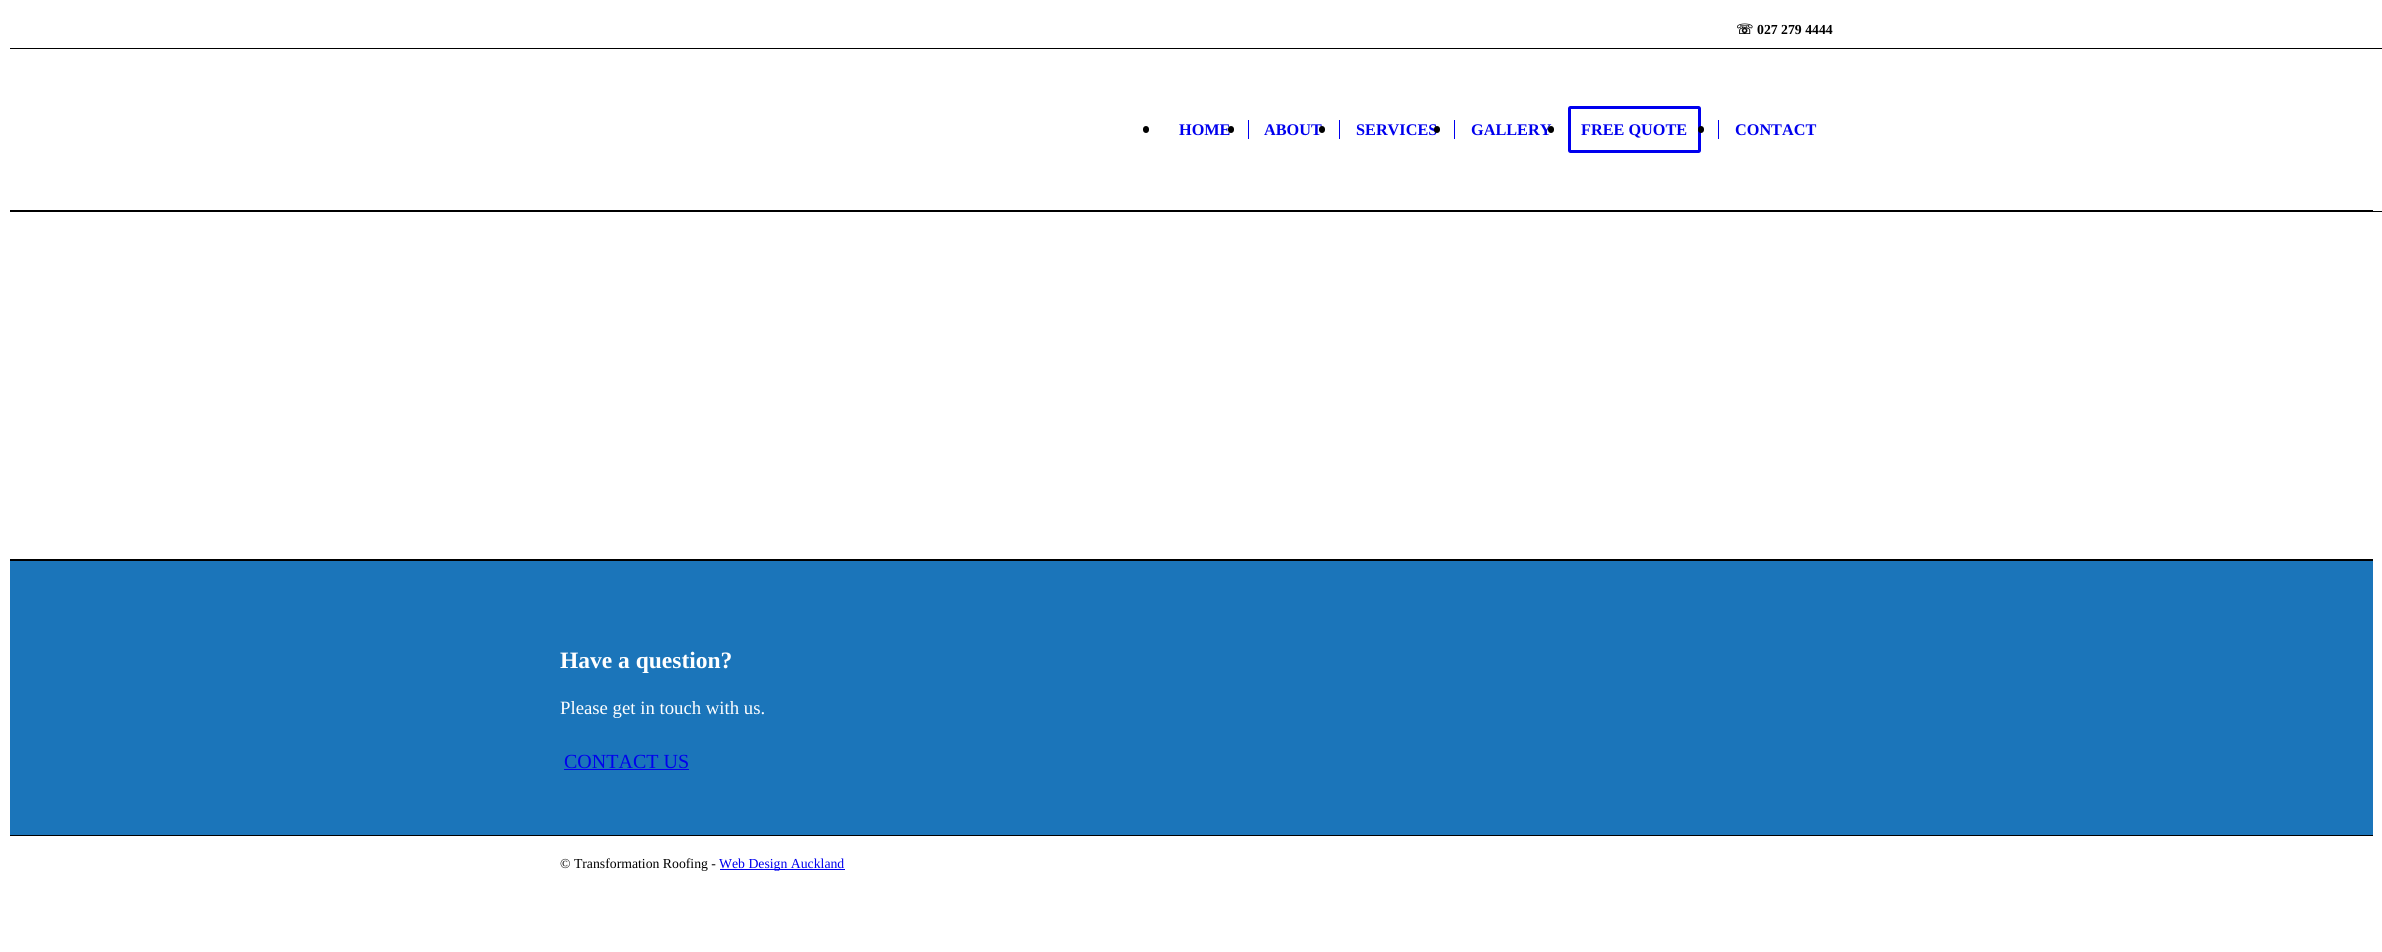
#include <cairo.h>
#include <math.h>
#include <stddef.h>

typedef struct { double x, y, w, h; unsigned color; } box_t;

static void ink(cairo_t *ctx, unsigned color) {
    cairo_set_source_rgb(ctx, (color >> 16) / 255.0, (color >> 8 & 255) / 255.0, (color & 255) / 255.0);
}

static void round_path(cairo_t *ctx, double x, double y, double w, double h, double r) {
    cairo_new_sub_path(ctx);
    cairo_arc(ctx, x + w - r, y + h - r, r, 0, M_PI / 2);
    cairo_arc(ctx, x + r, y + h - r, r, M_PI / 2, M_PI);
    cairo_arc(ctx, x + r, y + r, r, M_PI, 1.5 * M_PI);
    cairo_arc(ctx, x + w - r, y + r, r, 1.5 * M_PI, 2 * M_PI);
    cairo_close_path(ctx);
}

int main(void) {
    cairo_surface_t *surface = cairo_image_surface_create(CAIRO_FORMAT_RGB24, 2382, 952);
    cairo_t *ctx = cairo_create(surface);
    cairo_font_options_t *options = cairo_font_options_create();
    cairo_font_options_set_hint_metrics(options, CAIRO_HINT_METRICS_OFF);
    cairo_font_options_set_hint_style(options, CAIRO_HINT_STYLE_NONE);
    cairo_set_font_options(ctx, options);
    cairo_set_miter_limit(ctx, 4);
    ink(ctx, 0xFFFFFF);
    cairo_paint(ctx);
    cairo_select_font_face(ctx, "DejaVu Sans", CAIRO_FONT_SLANT_NORMAL, CAIRO_FONT_WEIGHT_BOLD);
    cairo_set_font_size(ctx, 13.75);
    ink(ctx, 0x000000);
    cairo_move_to(ctx, 1736, 34);
    cairo_show_text(ctx, "☏");
    cairo_select_font_face(ctx, "Liberation Serif", CAIRO_FONT_SLANT_NORMAL, CAIRO_FONT_WEIGHT_BOLD);
    cairo_move_to(ctx, 1757, 34);
    cairo_show_text(ctx, "027 279 4444");
    cairo_rectangle(ctx, 10, 48, 2372, 1);
    cairo_fill(ctx);
    cairo_rectangle(ctx, 10, 211, 2372, 1);
    cairo_fill(ctx);
    round_path(ctx, 1143, 126, 6, 7, 3);
    cairo_fill(ctx);
    cairo_set_font_size(ctx, 16.25);
    ink(ctx, 0x0000EE);
    cairo_move_to(ctx, 1179, 135);
    cairo_show_text(ctx, "HOME");
    ink(ctx, 0x000000);
    round_path(ctx, 1228, 126, 6, 7, 3);
    cairo_fill(ctx);
    ink(ctx, 0x0000EE);
    cairo_move_to(ctx, 1264, 135);
    cairo_show_text(ctx, "ABOUT");
    cairo_rectangle(ctx, 1248, 120, 1, 19);
    cairo_fill(ctx);
    ink(ctx, 0x000000);
    round_path(ctx, 1319, 126, 6, 7, 3);
    cairo_fill(ctx);
    ink(ctx, 0x0000EE);
    cairo_move_to(ctx, 1356, 135);
    cairo_show_text(ctx, "SERVICES");
    cairo_rectangle(ctx, 1339, 120, 1, 19);
    cairo_fill(ctx);
    ink(ctx, 0x000000);
    round_path(ctx, 1434, 126, 6, 7, 3);
    cairo_fill(ctx);
    ink(ctx, 0x0000EE);
    cairo_move_to(ctx, 1471, 135);
    cairo_show_text(ctx, "GALLERY");
    cairo_rectangle(ctx, 1454, 120, 1, 19);
    cairo_fill(ctx);
    ink(ctx, 0x000000);
    round_path(ctx, 1548, 126, 6, 7, 3);
    cairo_fill(ctx);
    round_path(ctx, 1569.5, 107.5, 130, 44, 1);
    ink(ctx, 0x0000EE);
    cairo_set_line_width(ctx, 3);
    cairo_stroke(ctx);
    cairo_move_to(ctx, 1581, 135);
    cairo_show_text(ctx, "FREE QUOTE");
    ink(ctx, 0x000000);
    round_path(ctx, 1698, 126, 6, 7, 3);
    cairo_fill(ctx);
    ink(ctx, 0x0000EE);
    cairo_move_to(ctx, 1735, 135);
    cairo_show_text(ctx, "CONTACT");
    {
        static const box_t items[] = {
            {1718, 120, 1, 19, 0x0000EE},
            {10, 210, 2363, 1, 0x000000},
            {10, 559, 2363, 2, 0x000000},
            {10, 561, 2363, 274, 0x1B75BA},
        };
        for (size_t i = 0; i < sizeof items / sizeof *items; i++) {
            ink(ctx, items[i].color);
            cairo_rectangle(ctx, items[i].x, items[i].y, items[i].w, items[i].h);
            cairo_fill(ctx);
        }
    }
    cairo_set_font_size(ctx, 23.5);
    ink(ctx, 0xFFFFFF);
    cairo_move_to(ctx, 560, 668);
    cairo_show_text(ctx, "Have a question?");
    cairo_select_font_face(ctx, "Liberation Serif", CAIRO_FONT_SLANT_NORMAL, CAIRO_FONT_WEIGHT_NORMAL);
    cairo_set_font_size(ctx, 18.75);
    cairo_move_to(ctx, 560, 714);
    cairo_show_text(ctx, "Please get in touch with us.");
    cairo_set_font_size(ctx, 20);
    ink(ctx, 0x0000EE);
    cairo_move_to(ctx, 564, 768);
    cairo_show_text(ctx, "CONTACT US");
    cairo_rectangle(ctx, 564, 769, 125, 1);
    cairo_fill(ctx);
    ink(ctx, 0x000000);
    cairo_rectangle(ctx, 10, 835, 2363, 1);
    cairo_fill(ctx);
    cairo_set_font_size(ctx, 13.75);
    cairo_move_to(ctx, 560, 868);
    cairo_show_text(ctx, "© Transformation Roofing -");
    ink(ctx, 0x0000EE);
    cairo_rectangle(ctx, 720, 869, 125, 1);
    cairo_fill(ctx);
    cairo_move_to(ctx, 719, 868);
    cairo_show_text(ctx, "Web Design Auckland");
    cairo_surface_write_to_png(surface, "image.png");
    cairo_font_options_destroy(options);
    cairo_destroy(ctx);
    cairo_surface_destroy(surface);
    return 0;
}
